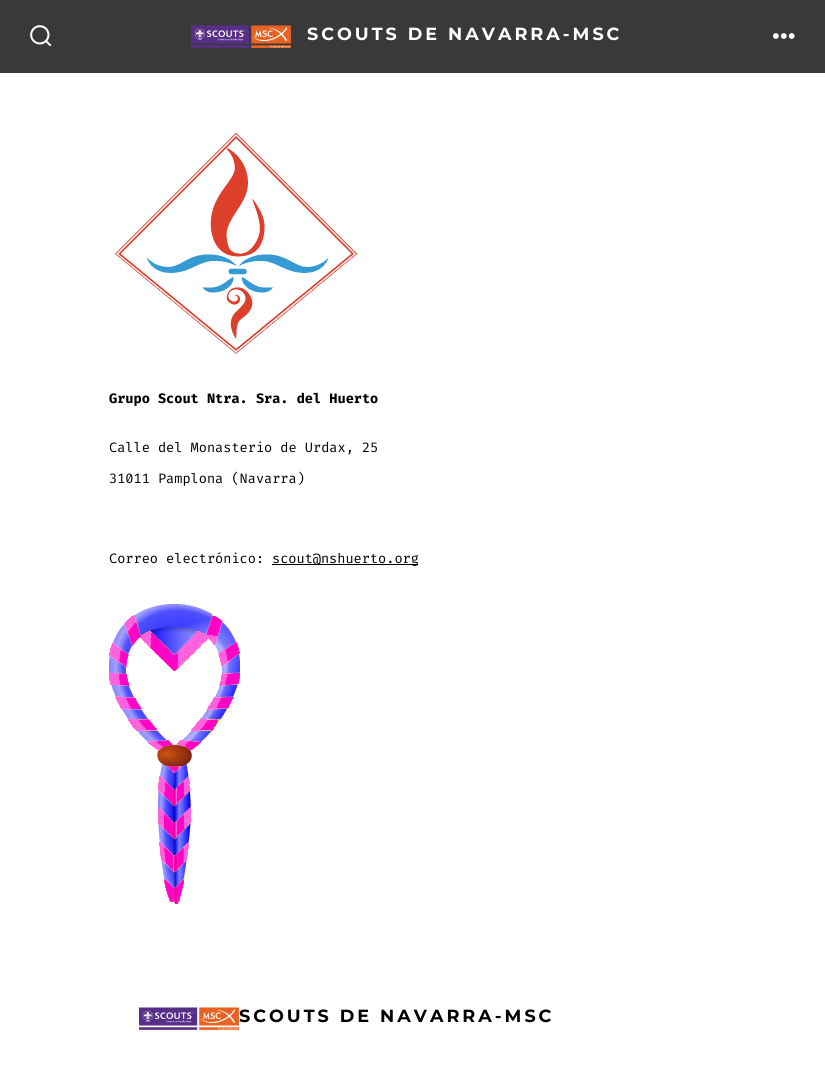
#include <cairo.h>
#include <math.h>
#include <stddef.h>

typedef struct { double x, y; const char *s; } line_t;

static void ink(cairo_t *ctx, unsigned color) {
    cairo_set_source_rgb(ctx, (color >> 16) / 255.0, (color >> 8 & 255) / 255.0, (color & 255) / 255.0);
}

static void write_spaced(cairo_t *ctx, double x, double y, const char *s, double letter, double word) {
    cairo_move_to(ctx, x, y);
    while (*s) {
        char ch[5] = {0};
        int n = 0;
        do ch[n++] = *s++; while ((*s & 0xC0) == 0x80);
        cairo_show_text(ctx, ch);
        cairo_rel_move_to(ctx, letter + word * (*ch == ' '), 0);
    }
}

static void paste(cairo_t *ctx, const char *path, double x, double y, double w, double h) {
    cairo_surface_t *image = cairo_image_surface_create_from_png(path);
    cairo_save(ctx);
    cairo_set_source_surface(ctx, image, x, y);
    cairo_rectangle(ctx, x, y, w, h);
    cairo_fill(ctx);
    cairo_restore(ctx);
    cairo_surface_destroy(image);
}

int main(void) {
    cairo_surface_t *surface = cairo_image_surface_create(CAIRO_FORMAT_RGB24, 825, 1088);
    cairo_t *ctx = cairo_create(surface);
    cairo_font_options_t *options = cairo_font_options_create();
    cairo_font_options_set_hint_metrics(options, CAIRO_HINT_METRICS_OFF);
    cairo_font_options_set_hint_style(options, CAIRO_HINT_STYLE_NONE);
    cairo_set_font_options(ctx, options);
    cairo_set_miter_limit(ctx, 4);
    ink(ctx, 0xFFFFFF);
    cairo_paint(ctx);
    ink(ctx, 0x39393C);
    cairo_rectangle(ctx, 0, 0, 825, 73);
    cairo_fill(ctx);
    paste(ctx, "media/1.png", 30, 25, 22, 21);
    paste(ctx, "media/2.png", 191, 25, 100, 23);
    cairo_select_font_face(ctx, "Montserrat", CAIRO_FONT_SLANT_NORMAL, CAIRO_FONT_WEIGHT_BOLD);
    cairo_set_font_size(ctx, 17.6);
    ink(ctx, 0xFFFFFF);
    write_spaced(ctx, 307, 40, "SCOUTS DE NAVARRA-MSC", 3, 0);
    paste(ctx, "media/3.png", 773, 33, 22, 6);
    paste(ctx, "media/4.png", 115, 132, 243, 222);
    cairo_select_font_face(ctx, "Fira Code", CAIRO_FONT_SLANT_NORMAL, CAIRO_FONT_WEIGHT_BOLD);
    cairo_set_font_size(ctx, 13.6);
    ink(ctx, 0x000000);
    cairo_move_to(ctx, 109, 403);
    cairo_show_text(ctx, "Grupo Scout Ntra. Sra. del Huerto");
    cairo_select_font_face(ctx, "Fira Code", CAIRO_FONT_SLANT_NORMAL, CAIRO_FONT_WEIGHT_NORMAL);
    {
        static const line_t items[] = {
            {109, 452, "Calle del Monasterio de Urdax, 25"},
            {109, 483, "31011 Pamplona (Navarra)"},
            {109, 563, "Correo electrónico:"},
        };
        for (size_t i = 0; i < sizeof items / sizeof *items; i++) {
            cairo_move_to(ctx, items[i].x, items[i].y);
            cairo_show_text(ctx, items[i].s);
        }
    }
    cairo_rectangle(ctx, 272, 564, 146, 1);
    cairo_fill(ctx);
    cairo_move_to(ctx, 272, 563);
    cairo_show_text(ctx, "scout@nshuerto.org");
    paste(ctx, "media/5.png", 109, 604, 131, 300);
    paste(ctx, "media/6.png", 139, 1007, 100, 23);
    cairo_select_font_face(ctx, "Montserrat", CAIRO_FONT_SLANT_NORMAL, CAIRO_FONT_WEIGHT_BOLD);
    cairo_set_font_size(ctx, 17.6);
    write_spaced(ctx, 239, 1022, "SCOUTS DE NAVARRA-MSC", 3, 0);
    cairo_surface_write_to_png(surface, "image.png");
    cairo_font_options_destroy(options);
    cairo_destroy(ctx);
    cairo_surface_destroy(surface);
    return 0;
}
